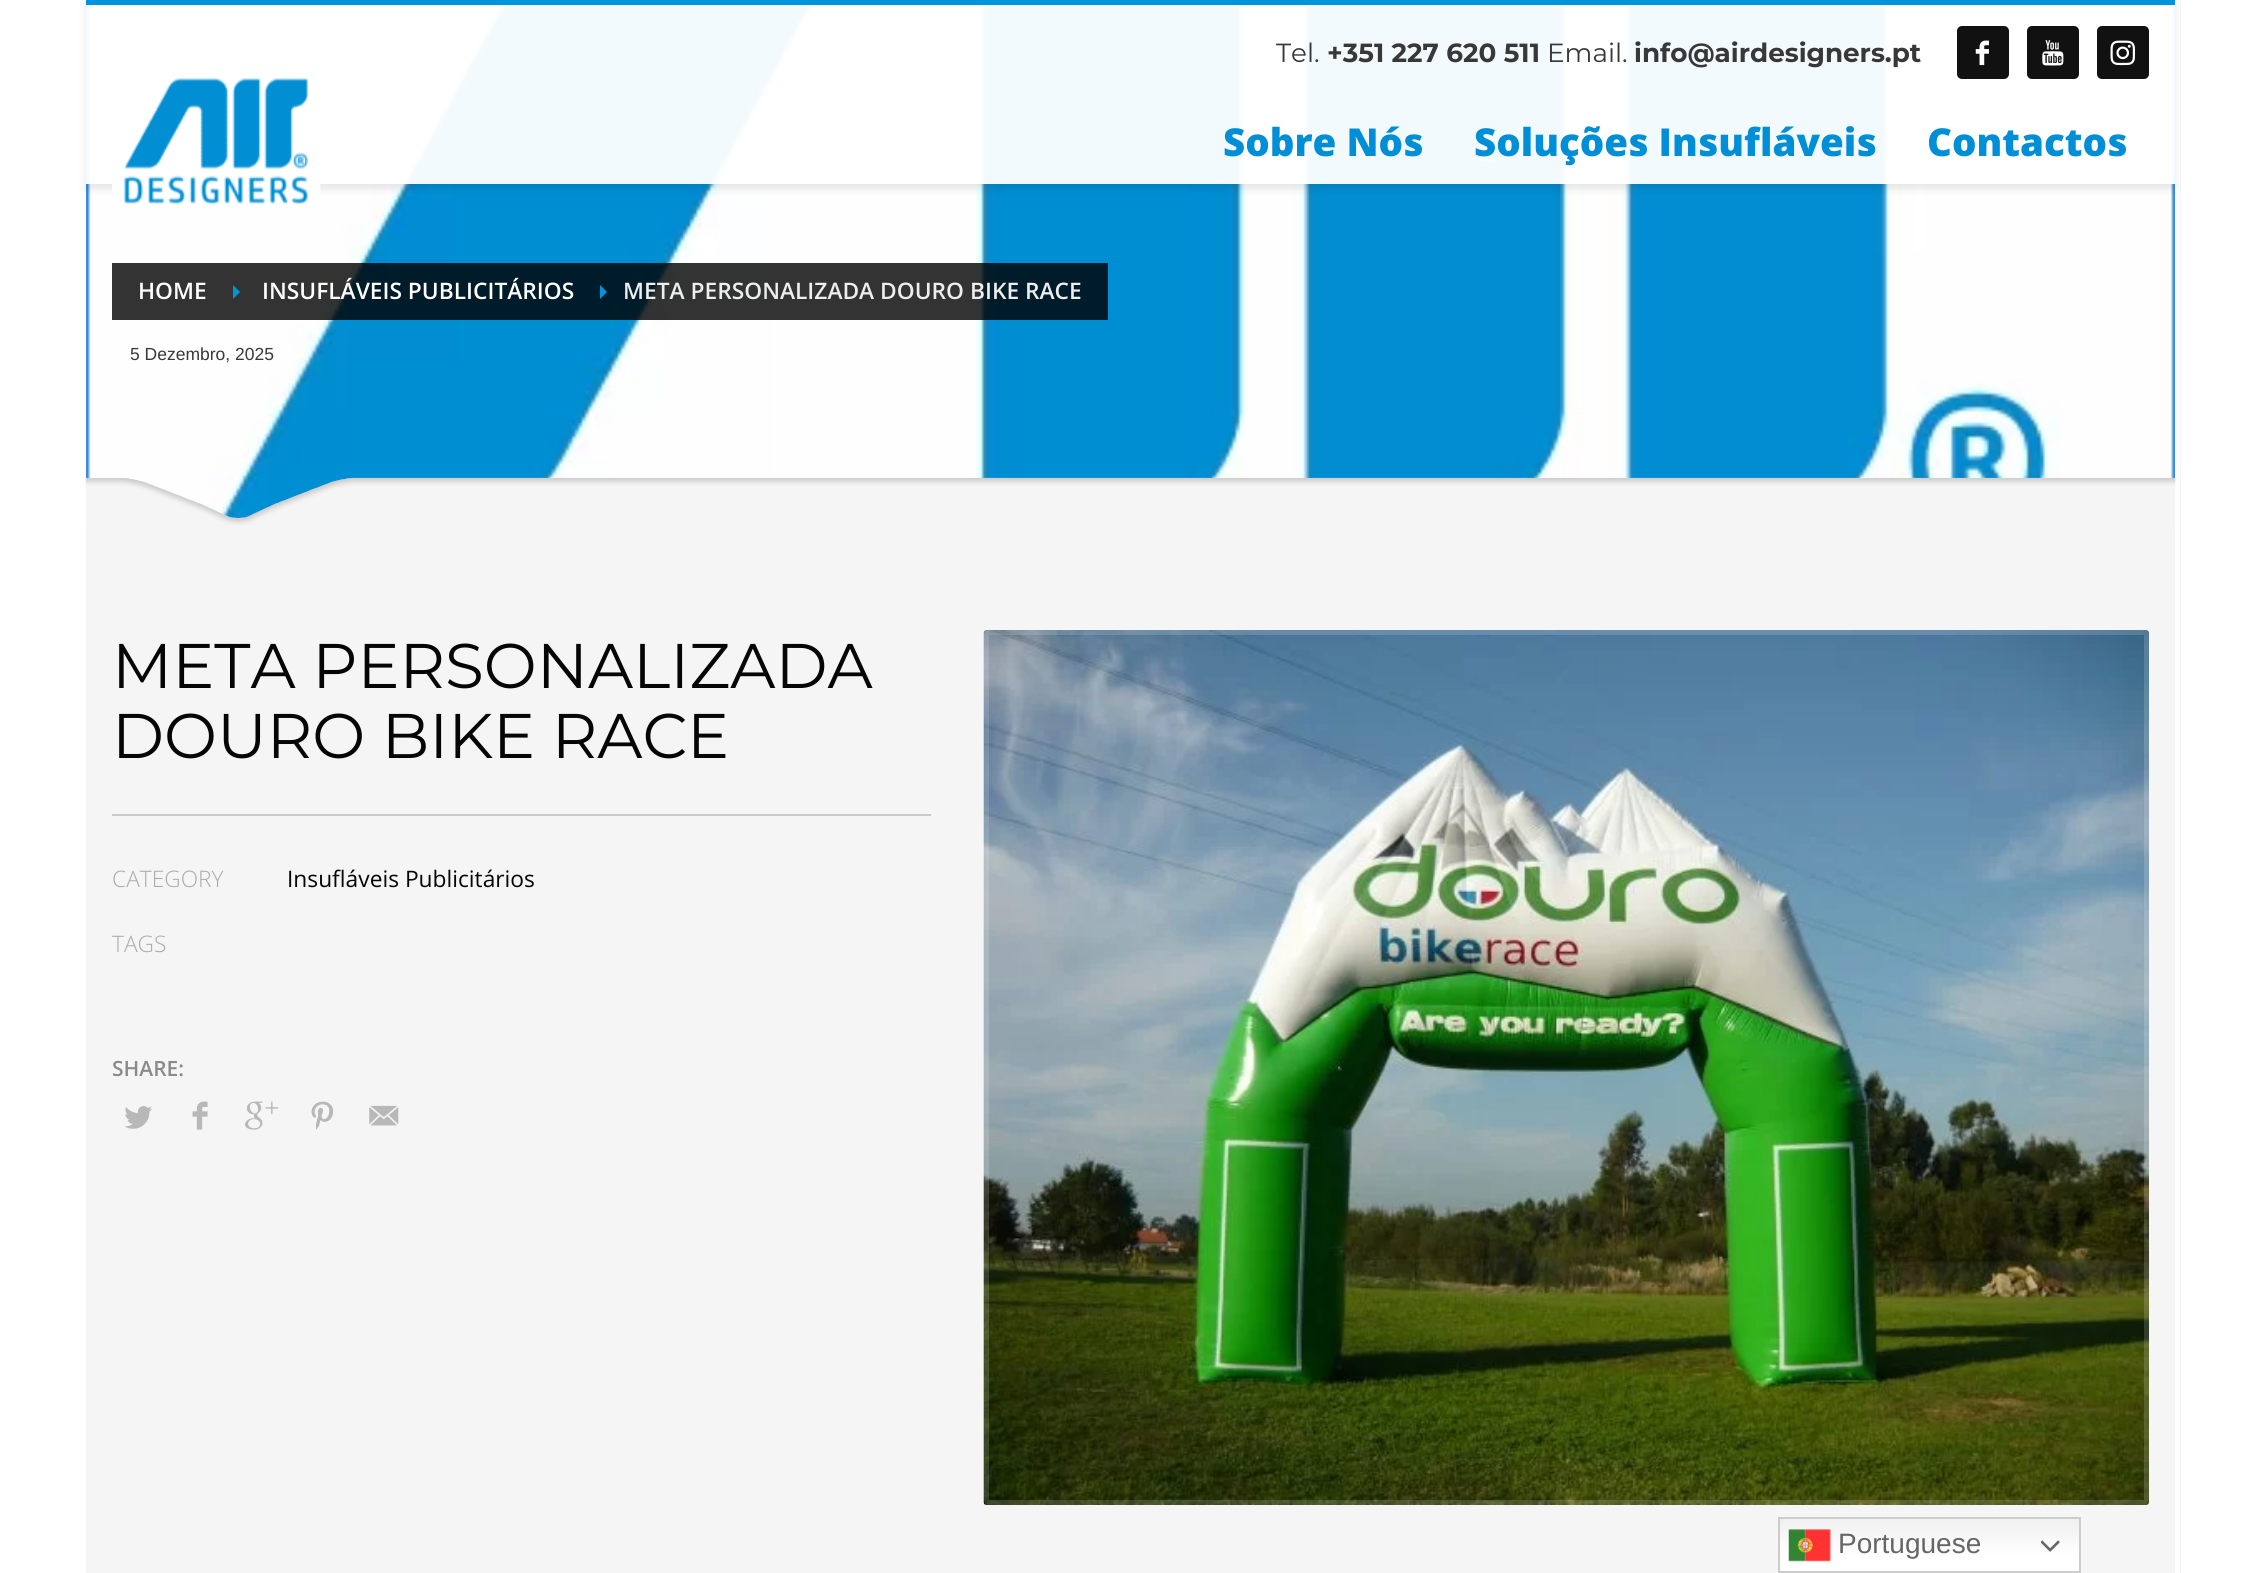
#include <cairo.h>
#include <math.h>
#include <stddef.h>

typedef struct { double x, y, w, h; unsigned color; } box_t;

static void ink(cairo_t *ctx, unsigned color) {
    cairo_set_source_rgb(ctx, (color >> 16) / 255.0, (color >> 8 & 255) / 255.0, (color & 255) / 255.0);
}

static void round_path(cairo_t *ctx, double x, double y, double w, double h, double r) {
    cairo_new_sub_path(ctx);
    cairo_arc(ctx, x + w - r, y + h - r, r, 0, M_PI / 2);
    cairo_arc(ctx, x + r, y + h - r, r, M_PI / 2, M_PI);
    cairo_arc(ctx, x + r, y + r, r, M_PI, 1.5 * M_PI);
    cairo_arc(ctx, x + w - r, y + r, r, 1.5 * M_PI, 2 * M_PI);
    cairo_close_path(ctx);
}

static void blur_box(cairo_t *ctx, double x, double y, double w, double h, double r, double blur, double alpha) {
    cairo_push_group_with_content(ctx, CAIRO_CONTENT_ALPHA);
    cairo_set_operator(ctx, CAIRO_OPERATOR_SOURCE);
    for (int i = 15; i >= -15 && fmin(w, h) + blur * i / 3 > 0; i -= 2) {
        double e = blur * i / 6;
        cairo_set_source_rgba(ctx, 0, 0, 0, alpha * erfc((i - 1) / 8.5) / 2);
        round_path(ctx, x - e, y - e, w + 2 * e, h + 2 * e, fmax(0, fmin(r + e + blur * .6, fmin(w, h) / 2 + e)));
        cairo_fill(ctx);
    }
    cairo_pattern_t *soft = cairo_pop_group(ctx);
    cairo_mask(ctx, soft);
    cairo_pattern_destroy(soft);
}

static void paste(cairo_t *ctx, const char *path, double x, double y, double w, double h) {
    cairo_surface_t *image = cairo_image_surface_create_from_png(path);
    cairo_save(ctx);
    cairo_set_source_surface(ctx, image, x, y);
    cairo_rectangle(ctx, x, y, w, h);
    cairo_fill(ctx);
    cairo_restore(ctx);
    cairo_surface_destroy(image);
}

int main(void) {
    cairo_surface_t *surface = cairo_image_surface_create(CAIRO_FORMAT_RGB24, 2261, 1573);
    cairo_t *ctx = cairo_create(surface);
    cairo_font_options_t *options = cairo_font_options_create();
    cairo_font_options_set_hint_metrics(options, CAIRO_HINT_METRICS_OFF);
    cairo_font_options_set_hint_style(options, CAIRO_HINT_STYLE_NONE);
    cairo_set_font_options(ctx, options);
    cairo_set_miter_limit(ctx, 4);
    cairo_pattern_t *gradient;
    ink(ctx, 0xFFFFFF);
    cairo_paint(ctx);
    {
        static const box_t items[] = {
            {86, 0, 2095, 1573, 0xF5F5F5},
            {2175, 0, 5, 1573, 0xFFFFFF},
            {86, 5, 2089, 473, 0x066FD9},
        };
        for (size_t i = 0; i < sizeof items / sizeof *items; i++) {
            ink(ctx, items[i].color);
            cairo_rectangle(ctx, items[i].x, items[i].y, items[i].w, items[i].h);
            cairo_fill(ctx);
        }
    }
    paste(ctx, "media/5.png", 86, 5, 2089, 513);
    cairo_save(ctx);
    cairo_set_fill_rule(ctx, CAIRO_FILL_RULE_EVEN_ODD);
    cairo_new_path(ctx);
    cairo_move_to(ctx, 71, 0);
    cairo_line_to(ctx, 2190, 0);
    cairo_line_to(ctx, 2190, 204);
    cairo_line_to(ctx, 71, 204);
    cairo_close_path(ctx);
    cairo_move_to(ctx, 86, 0);
    cairo_line_to(ctx, 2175, 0);
    cairo_line_to(ctx, 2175, 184);
    cairo_line_to(ctx, 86, 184);
    cairo_close_path(ctx);
    cairo_clip(ctx);
    ink(ctx, 0x000000);
    blur_box(ctx, 86, 5, 2089, 184, 0, 4.5, 0.1);
    cairo_restore(ctx);
    cairo_set_source_rgba(ctx, 1, 1, 1, 0.95);
    cairo_rectangle(ctx, 86, 5, 2089, 179);
    cairo_fill(ctx);
    ink(ctx, 0x0095DA);
    cairo_rectangle(ctx, 86, 0, 2089, 5);
    cairo_fill(ctx);
    paste(ctx, "media/1.png", 112, 78, 209, 127);
    cairo_select_font_face(ctx, "Montserrat", CAIRO_FONT_SLANT_NORMAL, CAIRO_FONT_WEIGHT_NORMAL);
    cairo_set_font_size(ctx, 26.25);
    ink(ctx, 0x383838);
    cairo_move_to(ctx, 1276, 62);
    cairo_show_text(ctx, "Tel.");
    cairo_select_font_face(ctx, "Montserrat", CAIRO_FONT_SLANT_NORMAL, CAIRO_FONT_WEIGHT_BOLD);
    cairo_move_to(ctx, 1327, 62);
    cairo_show_text(ctx, "+351 227 620 511");
    cairo_select_font_face(ctx, "Montserrat", CAIRO_FONT_SLANT_NORMAL, CAIRO_FONT_WEIGHT_NORMAL);
    cairo_move_to(ctx, 1547, 62);
    cairo_show_text(ctx, "Email.");
    cairo_select_font_face(ctx, "Montserrat", CAIRO_FONT_SLANT_NORMAL, CAIRO_FONT_WEIGHT_BOLD);
    cairo_move_to(ctx, 1634, 62);
    cairo_show_text(ctx, "info@airdesigners.pt");
    ink(ctx, 0x111111);
    round_path(ctx, 1957, 26, 52, 53, 5);
    cairo_fill(ctx);
    paste(ctx, "media/2.png", 1975, 40, 14, 26);
    round_path(ctx, 2027, 26, 52, 53, 5);
    cairo_fill(ctx);
    paste(ctx, "media/3.png", 2042, 40, 22, 26);
    round_path(ctx, 2097, 26, 52, 53, 5);
    cairo_fill(ctx);
    paste(ctx, "media/4.png", 2110, 40, 25, 26);
    cairo_select_font_face(ctx, "Open Sans ExtraBold", CAIRO_FONT_SLANT_NORMAL, CAIRO_FONT_WEIGHT_NORMAL);
    cairo_set_font_size(ctx, 38.5);
    ink(ctx, 0x008ED6);
    cairo_move_to(ctx, 1223, 156);
    cairo_show_text(ctx, "Sobre Nós");
    cairo_move_to(ctx, 1474, 156);
    cairo_show_text(ctx, "Soluções Insufláveis");
    ink(ctx, 0xF7FCFE);
    cairo_rectangle(ctx, 1482, 159, 13, 2);
    cairo_fill(ctx);
    ink(ctx, 0x008ED6);
    cairo_move_to(ctx, 1927, 156);
    cairo_show_text(ctx, "Contactos");
    ink(ctx, 0x333333);
    cairo_rectangle(ctx, 112, 263, 103, 57);
    cairo_fill(ctx);
    cairo_select_font_face(ctx, "Open Sans SemiBold", CAIRO_FONT_SLANT_NORMAL, CAIRO_FONT_WEIGHT_NORMAL);
    cairo_set_font_size(ctx, 22.75);
    ink(ctx, 0xFFFFFF);
    cairo_move_to(ctx, 138, 299);
    cairo_show_text(ctx, "HOME");
    cairo_set_source_rgba(ctx, 0, 0, 0, 0.8);
    cairo_rectangle(ctx, 215, 263, 368, 57);
    cairo_fill(ctx);
    ink(ctx, 0x0095DA);
    cairo_new_path(ctx);
    cairo_move_to(ctx, 233, 299);
    cairo_line_to(ctx, 233, 285);
    cairo_line_to(ctx, 240, 292);
    cairo_close_path(ctx);
    cairo_fill(ctx);
    ink(ctx, 0xFFFFFF);
    cairo_move_to(ctx, 262, 299);
    cairo_show_text(ctx, "INSUFLÁVEIS PUBLICITÁRIOS");
    cairo_set_source_rgba(ctx, 0, 0, 0, 0.8);
    cairo_rectangle(ctx, 583, 263, 525, 57);
    cairo_fill(ctx);
    ink(ctx, 0x0095DA);
    cairo_new_path(ctx);
    cairo_move_to(ctx, 600, 299);
    cairo_line_to(ctx, 600, 285);
    cairo_line_to(ctx, 607, 292);
    cairo_close_path(ctx);
    cairo_fill(ctx);
    ink(ctx, 0xEEEEEE);
    cairo_move_to(ctx, 623, 299);
    cairo_show_text(ctx, "META PERSONALIZADA DOURO BIKE RACE");
    cairo_select_font_face(ctx, "Liberation Sans", CAIRO_FONT_SLANT_NORMAL, CAIRO_FONT_WEIGHT_NORMAL);
    cairo_set_font_size(ctx, 17.5);
    ink(ctx, 0x383838);
    cairo_move_to(ctx, 130, 360);
    cairo_show_text(ctx, "5 Dezembro, 2025");
    paste(ctx, "media/6.png", 85, 477, 2091, 48);
    ink(ctx, 0xCBCBCB);
    cairo_rectangle(ctx, 112, 814, 819, 2);
    cairo_fill(ctx);
    cairo_select_font_face(ctx, "Montserrat", CAIRO_FONT_SLANT_NORMAL, CAIRO_FONT_WEIGHT_NORMAL);
    cairo_set_font_size(ctx, 63);
    ink(ctx, 0x050505);
    cairo_move_to(ctx, 112, 688);
    cairo_show_text(ctx, "META PERSONALIZADA");
    cairo_move_to(ctx, 112, 758);
    cairo_show_text(ctx, "DOURO BIKE RACE");
    cairo_select_font_face(ctx, "Open Sans Light", CAIRO_FONT_SLANT_NORMAL, CAIRO_FONT_WEIGHT_NORMAL);
    cairo_set_font_size(ctx, 22.75);
    ink(ctx, 0xABABAB);
    cairo_move_to(ctx, 112, 887);
    cairo_show_text(ctx, "CATEGORY");
    cairo_select_font_face(ctx, "Open Sans", CAIRO_FONT_SLANT_NORMAL, CAIRO_FONT_WEIGHT_NORMAL);
    ink(ctx, 0x050505);
    cairo_move_to(ctx, 287, 887);
    cairo_show_text(ctx, "Insufláveis Publicitários");
    cairo_select_font_face(ctx, "Open Sans Light", CAIRO_FONT_SLANT_NORMAL, CAIRO_FONT_WEIGHT_NORMAL);
    ink(ctx, 0xABABAB);
    cairo_move_to(ctx, 112, 952);
    cairo_show_text(ctx, "TAGS");
    cairo_select_font_face(ctx, "Open Sans SemiBold", CAIRO_FONT_SLANT_NORMAL, CAIRO_FONT_WEIGHT_NORMAL);
    cairo_set_font_size(ctx, 21);
    ink(ctx, 0x8A8A8A);
    cairo_move_to(ctx, 112, 1076);
    cairo_show_text(ctx, "SHARE:");
    paste(ctx, "media/7.png", 124, 1106, 28, 23);
    paste(ctx, "media/8.png", 192, 1101, 16, 29);
    paste(ctx, "media/9.png", 245, 1101, 34, 29);
    paste(ctx, "media/10.png", 311, 1101, 23, 29);
    paste(ctx, "media/11.png", 369, 1105, 30, 21);
    paste(ctx, "media/12.png", 983, 630, 1166, 875);
    round_path(ctx, 986.5, 632.5, 1160, 870, 2.5);
    cairo_set_source_rgba(ctx, 1, 1, 1, 0.15);
    cairo_set_line_width(ctx, 5);
    cairo_stroke(ctx);
    gradient = cairo_pattern_create_linear(1929, 1517, 1929, 1573);
    cairo_pattern_add_color_stop_rgba(gradient, 0, 0.937, 0.937, 0.937, 1);
    cairo_pattern_add_color_stop_rgba(gradient, 0.7, 1, 1, 1, 1);
    cairo_set_source(ctx, gradient);
    cairo_pattern_destroy(gradient);
    cairo_rectangle(ctx, 1780, 1519, 299, 52);
    cairo_fill(ctx);
    cairo_rectangle(ctx, 1779, 1518, 301, 54);
    ink(ctx, 0xCCCCCC);
    cairo_set_line_width(ctx, 2);
    cairo_stroke(ctx);
    paste(ctx, "media/13.png", 1788, 1529, 43, 33);
    cairo_select_font_face(ctx, "Liberation Sans", CAIRO_FONT_SLANT_NORMAL, CAIRO_FONT_WEIGHT_NORMAL);
    cairo_set_font_size(ctx, 28);
    ink(ctx, 0x666666);
    cairo_move_to(ctx, 1838, 1553);
    cairo_show_text(ctx, "Portuguese");
    paste(ctx, "media/14.png", 2041, 1540, 19, 12);
    cairo_surface_write_to_png(surface, "image.png");
    cairo_font_options_destroy(options);
    cairo_destroy(ctx);
    cairo_surface_destroy(surface);
    return 0;
}
